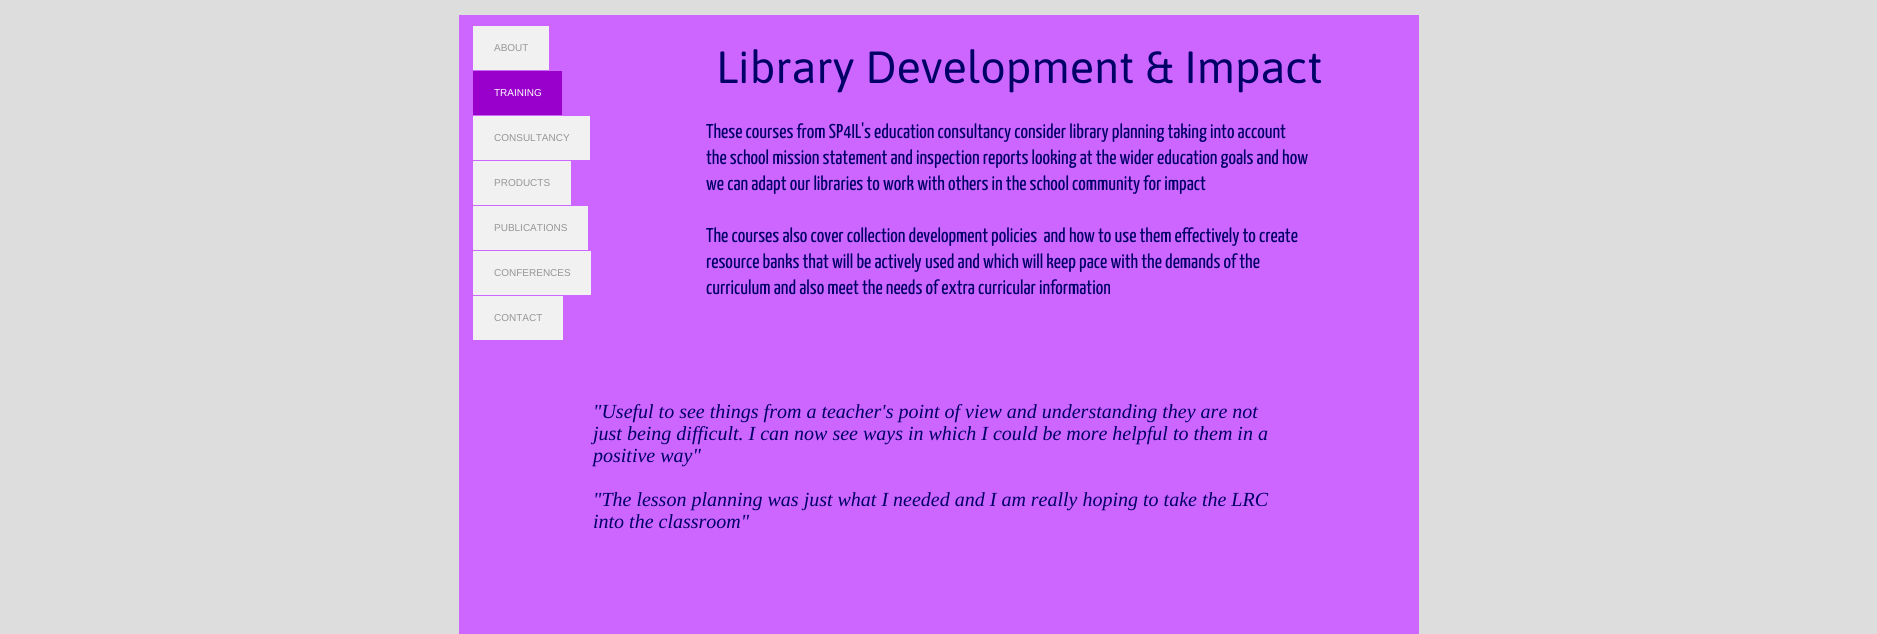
#include <cairo.h>
#include <math.h>
#include <stddef.h>

typedef struct { double x, y; const char *s; } line_t;

static void ink(cairo_t *ctx, unsigned color) {
    cairo_set_source_rgb(ctx, (color >> 16) / 255.0, (color >> 8 & 255) / 255.0, (color & 255) / 255.0);
}

int main(void) {
    cairo_surface_t *surface = cairo_image_surface_create(CAIRO_FORMAT_RGB24, 1877, 634);
    cairo_t *ctx = cairo_create(surface);
    cairo_font_options_t *options = cairo_font_options_create();
    cairo_font_options_set_hint_metrics(options, CAIRO_HINT_METRICS_OFF);
    cairo_font_options_set_hint_style(options, CAIRO_HINT_STYLE_NONE);
    cairo_set_font_options(ctx, options);
    cairo_set_miter_limit(ctx, 4);
    ink(ctx, 0xDDDDDD);
    cairo_paint(ctx);
    ink(ctx, 0xCC66FF);
    cairo_rectangle(ctx, 459, 15, 960, 619);
    cairo_fill(ctx);
    ink(ctx, 0xF1F1F1);
    cairo_rectangle(ctx, 473, 26, 76, 44);
    cairo_fill(ctx);
    cairo_select_font_face(ctx, "Liberation Sans", CAIRO_FONT_SLANT_NORMAL, CAIRO_FONT_WEIGHT_NORMAL);
    cairo_set_font_size(ctx, 10);
    ink(ctx, 0x969696);
    cairo_move_to(ctx, 494, 51);
    cairo_show_text(ctx, "ABOUT");
    ink(ctx, 0x9900CC);
    cairo_rectangle(ctx, 473, 71, 89, 44);
    cairo_fill(ctx);
    ink(ctx, 0xFFFFFF);
    cairo_move_to(ctx, 494, 96);
    cairo_show_text(ctx, "TRAINING");
    ink(ctx, 0xF1F1F1);
    cairo_rectangle(ctx, 473, 116, 117, 44);
    cairo_fill(ctx);
    ink(ctx, 0x969696);
    cairo_move_to(ctx, 494, 141);
    cairo_show_text(ctx, "CONSULTANCY");
    ink(ctx, 0xF1F1F1);
    cairo_rectangle(ctx, 473, 161, 98, 44);
    cairo_fill(ctx);
    ink(ctx, 0x969696);
    cairo_move_to(ctx, 494, 186);
    cairo_show_text(ctx, "PRODUCTS");
    ink(ctx, 0xF1F1F1);
    cairo_rectangle(ctx, 473, 206, 115, 44);
    cairo_fill(ctx);
    ink(ctx, 0x969696);
    cairo_move_to(ctx, 494, 231);
    cairo_show_text(ctx, "PUBLICATIONS");
    ink(ctx, 0xF1F1F1);
    cairo_rectangle(ctx, 473, 251, 118, 44);
    cairo_fill(ctx);
    ink(ctx, 0x969696);
    cairo_move_to(ctx, 494, 276);
    cairo_show_text(ctx, "CONFERENCES");
    ink(ctx, 0xF1F1F1);
    cairo_rectangle(ctx, 473, 296, 90, 44);
    cairo_fill(ctx);
    ink(ctx, 0x969696);
    cairo_move_to(ctx, 494, 321);
    cairo_show_text(ctx, "CONTACT");
    cairo_select_font_face(ctx, "Asap", CAIRO_FONT_SLANT_NORMAL, CAIRO_FONT_WEIGHT_NORMAL);
    cairo_set_font_size(ctx, 45);
    ink(ctx, 0x000066);
    cairo_move_to(ctx, 716, 83);
    cairo_show_text(ctx, "Library Development & Impact");
    cairo_select_font_face(ctx, "Yanone Kaffeesatz ExtraLight", CAIRO_FONT_SLANT_NORMAL, CAIRO_FONT_WEIGHT_NORMAL);
    cairo_set_font_size(ctx, 20);
    {
        static const line_t items[] = {
            {706, 138, "These courses from SP4IL's education consultancy consider library planning taking into account"},
            {706, 164, "the school mission statement and inspection reports looking at the wider education goals and how"},
            {706, 190, "we can adapt our libraries to work with others in the school community for impact"},
            {706, 242, "The courses also cover collection development policies  and how to use them effectively to create"},
            {706, 268, "resource banks that will be actively used and which will keep pace with the demands of the"},
            {706, 294, "curriculum and also meet the needs of extra curricular information"},
        };
        for (size_t i = 0; i < sizeof items / sizeof *items; i++) {
            cairo_move_to(ctx, items[i].x, items[i].y);
            cairo_show_text(ctx, items[i].s);
        }
    }
    cairo_select_font_face(ctx, "Liberation Serif", CAIRO_FONT_SLANT_ITALIC, CAIRO_FONT_WEIGHT_NORMAL);
    {
        static const line_t items[] = {
            {593, 418, "\"Useful to see things from a teacher's point of view and understanding they are not"},
            {593, 440, "just being difficult. I can now see ways in which I could be more helpful to them in a"},
            {593, 462, "positive way\""},
            {593, 506, "\"The lesson planning was just what I needed and I am really hoping to take the LRC"},
            {593, 528, "into the classroom\""},
        };
        for (size_t i = 0; i < sizeof items / sizeof *items; i++) {
            cairo_move_to(ctx, items[i].x, items[i].y);
            cairo_show_text(ctx, items[i].s);
        }
    }
    cairo_surface_write_to_png(surface, "image.png");
    cairo_font_options_destroy(options);
    cairo_destroy(ctx);
    cairo_surface_destroy(surface);
    return 0;
}
